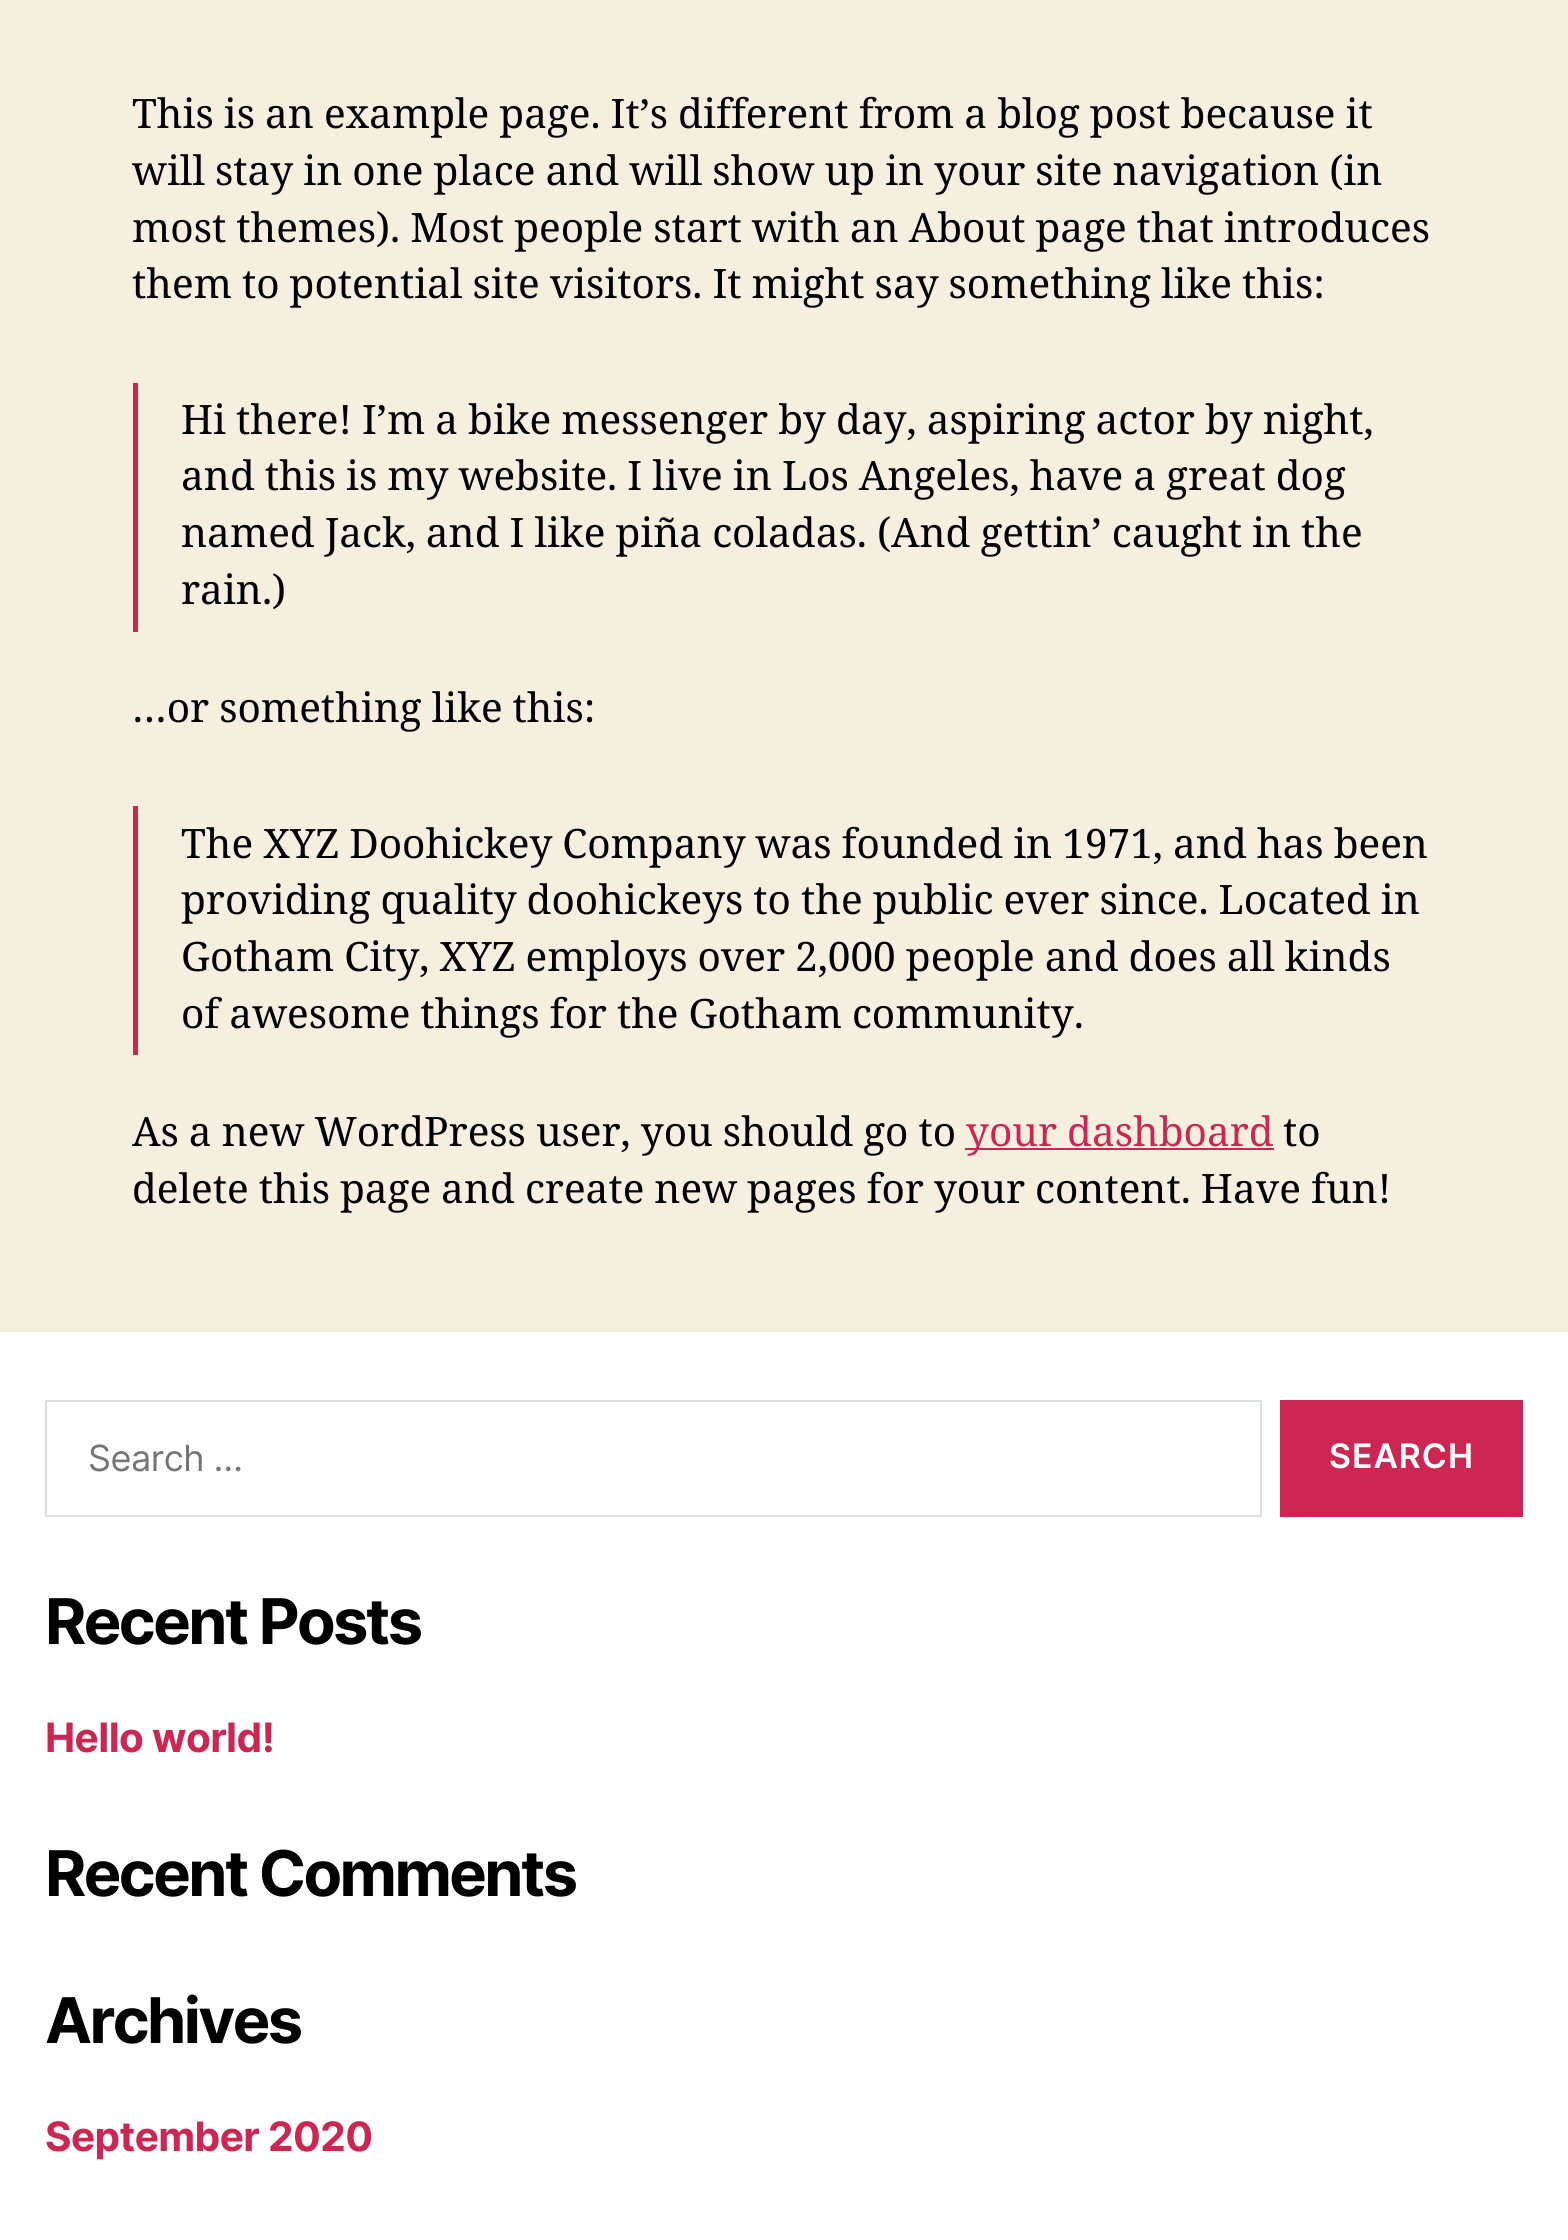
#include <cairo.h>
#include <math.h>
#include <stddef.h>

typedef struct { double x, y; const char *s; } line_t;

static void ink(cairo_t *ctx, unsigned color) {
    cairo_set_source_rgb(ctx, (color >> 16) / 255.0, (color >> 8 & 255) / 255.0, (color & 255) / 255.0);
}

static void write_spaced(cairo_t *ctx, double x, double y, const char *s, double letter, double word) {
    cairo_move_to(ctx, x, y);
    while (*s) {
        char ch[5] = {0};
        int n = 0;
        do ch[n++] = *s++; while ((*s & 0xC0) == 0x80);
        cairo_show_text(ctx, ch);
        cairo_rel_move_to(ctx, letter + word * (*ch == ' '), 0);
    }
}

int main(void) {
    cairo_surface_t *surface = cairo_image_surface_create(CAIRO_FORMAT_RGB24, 1568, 2240);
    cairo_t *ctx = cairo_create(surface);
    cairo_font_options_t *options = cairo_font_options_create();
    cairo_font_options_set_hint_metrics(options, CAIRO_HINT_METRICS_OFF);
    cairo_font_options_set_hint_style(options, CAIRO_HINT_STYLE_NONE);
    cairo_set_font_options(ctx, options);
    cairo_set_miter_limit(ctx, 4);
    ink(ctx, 0xF5EFE0);
    cairo_paint(ctx);
    cairo_select_font_face(ctx, "Noto Serif", CAIRO_FONT_SLANT_NORMAL, CAIRO_FONT_WEIGHT_NORMAL);
    cairo_set_font_size(ctx, 40.5);
    ink(ctx, 0x000000);
    {
        static const line_t items[] = {
            {132, 128, "This is an example page. It’s different from a blog post because it"},
            {132, 185, "will stay in one place and will show up in your site navigation (in"},
            {132, 242, "most themes). Most people start with an About page that introduces"},
            {132, 298, "them to potential site visitors. It might say something like this:"},
        };
        for (size_t i = 0; i < sizeof items / sizeof *items; i++) {
            write_spaced(ctx, items[i].x, items[i].y, items[i].s, 0, -0.5);
        }
    }
    ink(ctx, 0xCD2653);
    cairo_rectangle(ctx, 133, 383, 5, 249);
    cairo_fill(ctx);
    ink(ctx, 0x000000);
    {
        static const line_t items[] = {
            {181, 434, "Hi there! I’m a bike messenger by day, aspiring actor by night,"},
            {181, 490, "and this is my website. I live in Los Angeles, have a great dog"},
            {181, 547, "named Jack, and I like piña coladas. (And gettin’ caught in the"},
        };
        for (size_t i = 0; i < sizeof items / sizeof *items; i++) {
            write_spaced(ctx, items[i].x, items[i].y, items[i].s, 0, -0.5);
        }
    }
    cairo_move_to(ctx, 181, 604);
    cairo_show_text(ctx, "rain.)");
    write_spaced(ctx, 132, 722, "…or something like this:", 0, -0.5);
    ink(ctx, 0xCD2653);
    cairo_rectangle(ctx, 133, 806, 5, 249);
    cairo_fill(ctx);
    ink(ctx, 0x000000);
    {
        static const line_t items[] = {
            {181, 858, "The XYZ Doohickey Company was founded in 1971, and has been"},
            {181, 914, "providing quality doohickeys to the public ever since. Located in"},
            {181, 971, "Gotham City, XYZ employs over 2,000 people and does all kinds"},
            {181, 1028, "of awesome things for the Gotham community."},
            {132, 1146, "As a new WordPress user, you should go to"},
        };
        for (size_t i = 0; i < sizeof items / sizeof *items; i++) {
            write_spaced(ctx, items[i].x, items[i].y, items[i].s, 0, -0.5);
        }
    }
    ink(ctx, 0xCD2653);
    cairo_rectangle(ctx, 965, 1148, 309, 2);
    cairo_fill(ctx);
    write_spaced(ctx, 966, 1146, "your dashboard", 0, -0.5);
    ink(ctx, 0x000000);
    cairo_move_to(ctx, 1283, 1146);
    cairo_show_text(ctx, "to");
    write_spaced(ctx, 132, 1203, "delete this page and create new pages for your content. Have fun!", 0, -0.5);
    ink(ctx, 0xFFFFFF);
    cairo_rectangle(ctx, 0, 1332, 1568, 908);
    cairo_fill(ctx);
    cairo_rectangle(ctx, 46, 1401, 1215, 115);
    ink(ctx, 0xDEDFDF);
    cairo_stroke(ctx);
    cairo_select_font_face(ctx, "Inter", CAIRO_FONT_SLANT_NORMAL, CAIRO_FONT_WEIGHT_NORMAL);
    cairo_set_font_size(ctx, 36);
    ink(ctx, 0x757575);
    write_spaced(ctx, 88, 1471, "Search …", -0.5, 0);
    ink(ctx, 0xCD2653);
    cairo_rectangle(ctx, 1280, 1400, 243, 117);
    cairo_fill(ctx);
    cairo_select_font_face(ctx, "Inter SemiBold", CAIRO_FONT_SLANT_NORMAL, CAIRO_FONT_WEIGHT_NORMAL);
    cairo_set_font_size(ctx, 33.75);
    ink(ctx, 0xFFFFFF);
    write_spaced(ctx, 1329, 1468, "SEARCH", 1, 0);
    cairo_select_font_face(ctx, "Inter", CAIRO_FONT_SLANT_NORMAL, CAIRO_FONT_WEIGHT_BOLD);
    cairo_set_font_size(ctx, 63);
    ink(ctx, 0x000000);
    write_spaced(ctx, 45, 1644, "Recent Posts", -2.6, 0);
    cairo_set_font_size(ctx, 40.5);
    ink(ctx, 0xCD2653);
    write_spaced(ctx, 45, 1752, "Hello world!", -0.6, 0);
    cairo_set_font_size(ctx, 63);
    ink(ctx, 0x000000);
    write_spaced(ctx, 45, 1896, "Recent Comments", -2.6, 0);
    write_spaced(ctx, 45, 2043, "Archives", -2.6, 0);
    cairo_set_font_size(ctx, 40.5);
    ink(ctx, 0xCD2653);
    write_spaced(ctx, 45, 2151, "September 2020", -0.6, 0);
    cairo_surface_write_to_png(surface, "image.png");
    cairo_font_options_destroy(options);
    cairo_destroy(ctx);
    cairo_surface_destroy(surface);
    return 0;
}
